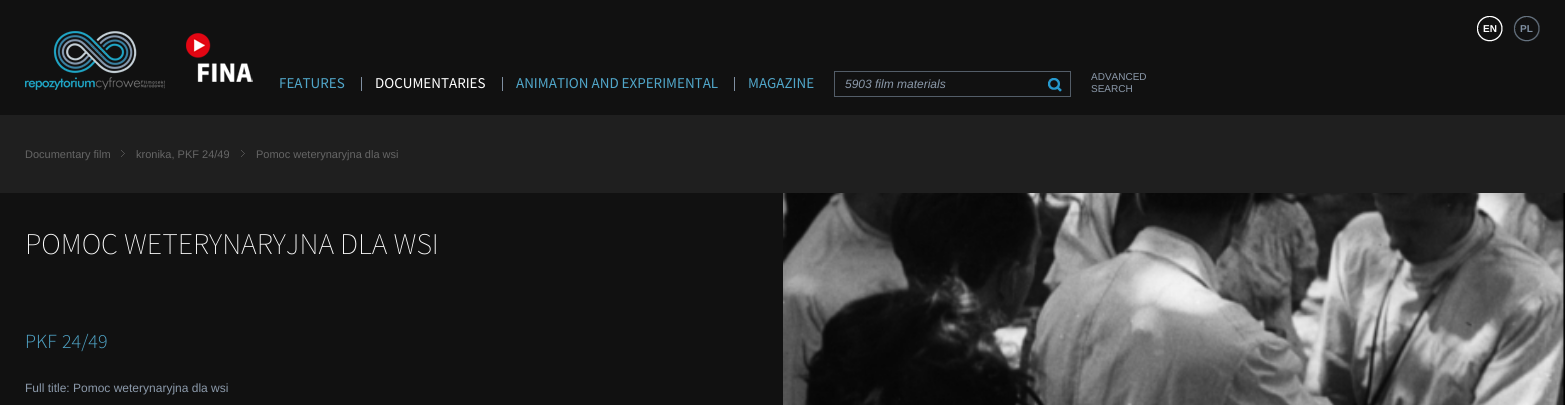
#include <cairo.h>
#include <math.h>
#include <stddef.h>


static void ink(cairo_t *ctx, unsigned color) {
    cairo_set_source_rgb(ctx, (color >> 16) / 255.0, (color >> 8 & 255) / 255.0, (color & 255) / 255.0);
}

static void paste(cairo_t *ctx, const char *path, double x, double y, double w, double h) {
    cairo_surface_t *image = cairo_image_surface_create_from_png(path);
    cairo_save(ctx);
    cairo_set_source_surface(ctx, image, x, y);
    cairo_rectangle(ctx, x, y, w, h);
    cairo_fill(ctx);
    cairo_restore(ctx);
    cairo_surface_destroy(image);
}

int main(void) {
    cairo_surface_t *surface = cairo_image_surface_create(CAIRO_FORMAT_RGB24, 1565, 405);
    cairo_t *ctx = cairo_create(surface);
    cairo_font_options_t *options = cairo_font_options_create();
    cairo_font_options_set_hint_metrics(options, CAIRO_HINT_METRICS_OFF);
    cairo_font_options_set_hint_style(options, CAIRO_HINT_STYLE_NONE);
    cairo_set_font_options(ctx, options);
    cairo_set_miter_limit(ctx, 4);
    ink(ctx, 0x111111);
    cairo_paint(ctx);
    paste(ctx, "media/1.png", 1477, 16, 26, 26);
    paste(ctx, "media/2.png", 1513, 16, 27, 26);
    cairo_select_font_face(ctx, "Liberation Sans", CAIRO_FONT_SLANT_NORMAL, CAIRO_FONT_WEIGHT_BOLD);
    cairo_set_font_size(ctx, 10);
    ink(ctx, 0xFFFFFF);
    cairo_move_to(ctx, 1483, 32);
    cairo_show_text(ctx, "EN");
    ink(ctx, 0x8090A2);
    cairo_move_to(ctx, 1520, 32);
    cairo_show_text(ctx, "PL");
    paste(ctx, "media/3.png", 25, 31, 140, 59);
    paste(ctx, "media/4.png", 186, 33, 67, 49);
    cairo_select_font_face(ctx, "Source Sans Pro", CAIRO_FONT_SLANT_NORMAL, CAIRO_FONT_WEIGHT_NORMAL);
    cairo_set_font_size(ctx, 15);
    ink(ctx, 0x50A6C9);
    cairo_move_to(ctx, 279, 88);
    cairo_show_text(ctx, "FEATURES");
    ink(ctx, 0xFFFFFF);
    cairo_move_to(ctx, 375, 88);
    cairo_show_text(ctx, "DOCUMENTARIES");
    ink(ctx, 0x8090A2);
    cairo_rectangle(ctx, 361, 77, 1, 14);
    cairo_fill(ctx);
    ink(ctx, 0x50A6C9);
    cairo_move_to(ctx, 516, 88);
    cairo_show_text(ctx, "ANIMATION AND EXPERIMENTAL");
    ink(ctx, 0x8090A2);
    cairo_rectangle(ctx, 502, 77, 1, 14);
    cairo_fill(ctx);
    ink(ctx, 0x50A6C9);
    cairo_move_to(ctx, 748, 88);
    cairo_show_text(ctx, "MAGAZINE");
    ink(ctx, 0x8090A2);
    cairo_rectangle(ctx, 734, 77, 1, 14);
    cairo_fill(ctx);
    cairo_rectangle(ctx, 834.5, 71.5, 236, 25);
    ink(ctx, 0x535D68);
    cairo_set_line_width(ctx, 1);
    cairo_stroke(ctx);
    cairo_select_font_face(ctx, "Liberation Sans", CAIRO_FONT_SLANT_ITALIC, CAIRO_FONT_WEIGHT_NORMAL);
    cairo_set_font_size(ctx, 12);
    ink(ctx, 0x8B99AA);
    cairo_move_to(ctx, 845, 88);
    cairo_show_text(ctx, "5903 film materials");
    paste(ctx, "media/5.png", 1048, 78, 14, 14);
    cairo_select_font_face(ctx, "Liberation Sans", CAIRO_FONT_SLANT_NORMAL, CAIRO_FONT_WEIGHT_NORMAL);
    cairo_set_font_size(ctx, 10);
    cairo_move_to(ctx, 1091, 80);
    cairo_show_text(ctx, "ADVANCED");
    cairo_move_to(ctx, 1091, 92);
    cairo_show_text(ctx, "SEARCH");
    ink(ctx, 0x1F1F1F);
    cairo_rectangle(ctx, 0, 115, 1565, 78);
    cairo_fill(ctx);
    cairo_set_font_size(ctx, 11);
    ink(ctx, 0x656565);
    cairo_move_to(ctx, 25, 158);
    cairo_show_text(ctx, "Documentary film");
    paste(ctx, "media/6.png", 121, 150, 4, 7);
    cairo_move_to(ctx, 136, 158);
    cairo_show_text(ctx, "kronika, PKF 24/49");
    paste(ctx, "media/6.png", 241, 150, 4, 7);
    cairo_move_to(ctx, 256, 158);
    cairo_show_text(ctx, "Pomoc weterynaryjna dla wsi");
    cairo_select_font_face(ctx, "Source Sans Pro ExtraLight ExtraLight", CAIRO_FONT_SLANT_NORMAL, CAIRO_FONT_WEIGHT_NORMAL);
    cairo_set_font_size(ctx, 30);
    ink(ctx, 0xFFFFFF);
    cairo_move_to(ctx, 25, 254);
    cairo_show_text(ctx, "POMOC WETERYNARYJNA DLA WSI");
    paste(ctx, "media/7.png", 783, 193, 782, 212);
    cairo_select_font_face(ctx, "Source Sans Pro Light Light", CAIRO_FONT_SLANT_NORMAL, CAIRO_FONT_WEIGHT_NORMAL);
    cairo_set_font_size(ctx, 20);
    ink(ctx, 0x50A6C9);
    cairo_move_to(ctx, 25, 348);
    cairo_show_text(ctx, "PKF");
    cairo_move_to(ctx, 62, 348);
    cairo_show_text(ctx, "24/49");
    cairo_select_font_face(ctx, "Liberation Sans", CAIRO_FONT_SLANT_NORMAL, CAIRO_FONT_WEIGHT_NORMAL);
    cairo_set_font_size(ctx, 12);
    ink(ctx, 0x8B99AA);
    cairo_move_to(ctx, 25, 392);
    cairo_show_text(ctx, "Full title: Pomoc weterynaryjna dla wsi");
    cairo_surface_write_to_png(surface, "image.png");
    cairo_font_options_destroy(options);
    cairo_destroy(ctx);
    cairo_surface_destroy(surface);
    return 0;
}
